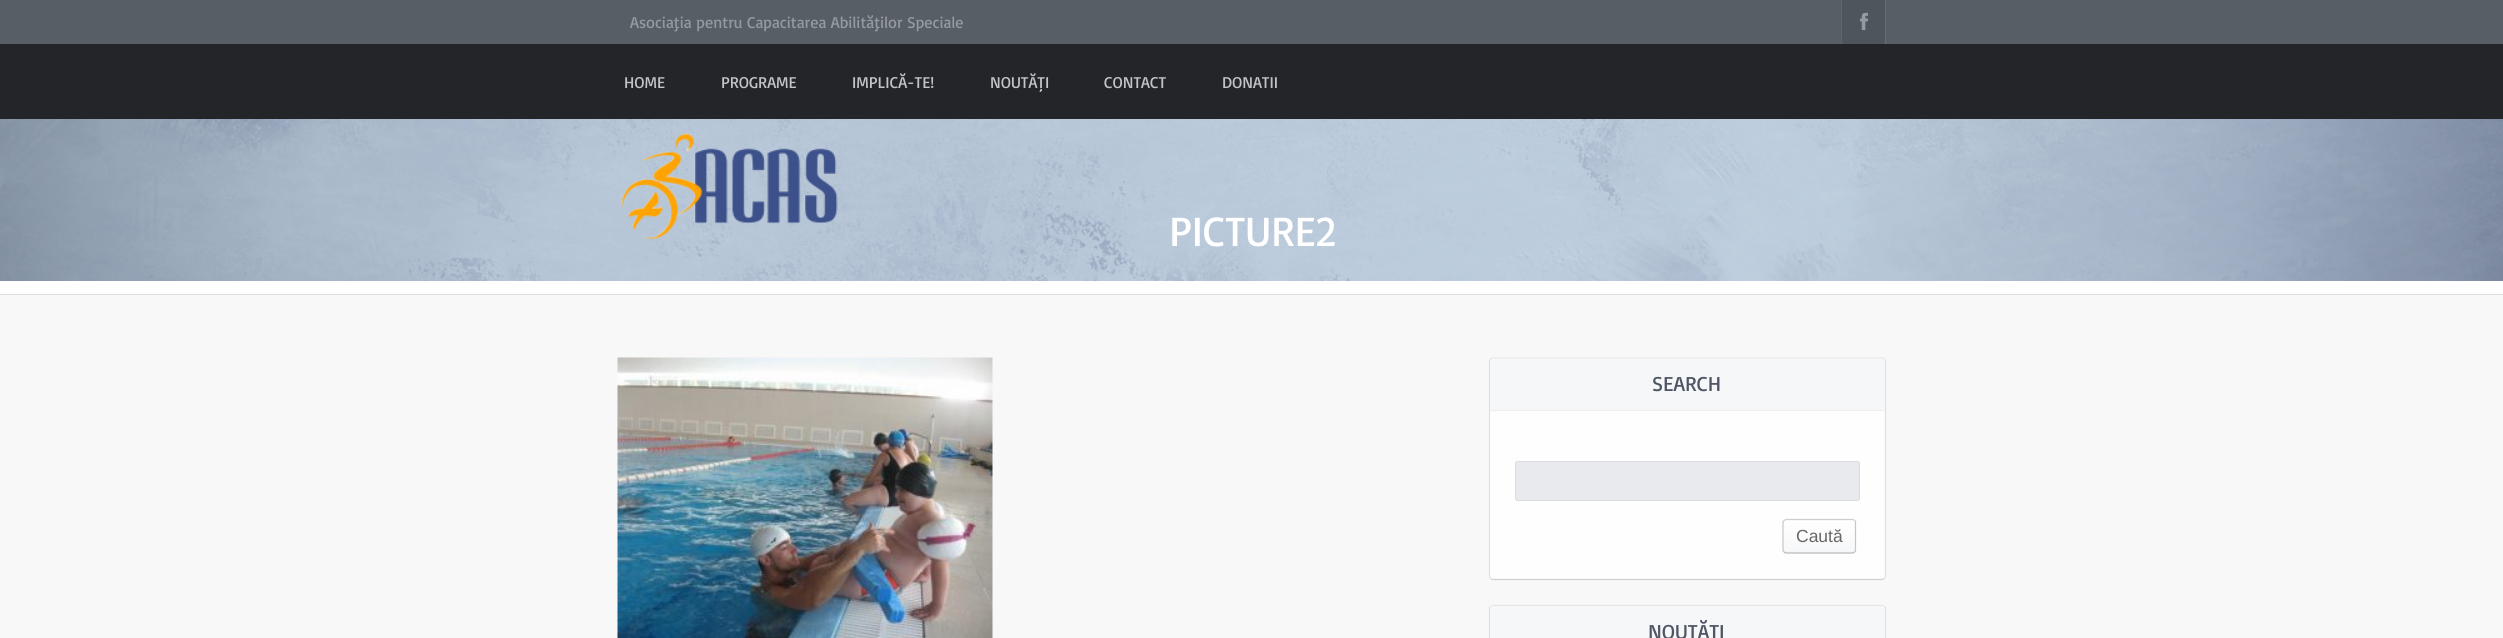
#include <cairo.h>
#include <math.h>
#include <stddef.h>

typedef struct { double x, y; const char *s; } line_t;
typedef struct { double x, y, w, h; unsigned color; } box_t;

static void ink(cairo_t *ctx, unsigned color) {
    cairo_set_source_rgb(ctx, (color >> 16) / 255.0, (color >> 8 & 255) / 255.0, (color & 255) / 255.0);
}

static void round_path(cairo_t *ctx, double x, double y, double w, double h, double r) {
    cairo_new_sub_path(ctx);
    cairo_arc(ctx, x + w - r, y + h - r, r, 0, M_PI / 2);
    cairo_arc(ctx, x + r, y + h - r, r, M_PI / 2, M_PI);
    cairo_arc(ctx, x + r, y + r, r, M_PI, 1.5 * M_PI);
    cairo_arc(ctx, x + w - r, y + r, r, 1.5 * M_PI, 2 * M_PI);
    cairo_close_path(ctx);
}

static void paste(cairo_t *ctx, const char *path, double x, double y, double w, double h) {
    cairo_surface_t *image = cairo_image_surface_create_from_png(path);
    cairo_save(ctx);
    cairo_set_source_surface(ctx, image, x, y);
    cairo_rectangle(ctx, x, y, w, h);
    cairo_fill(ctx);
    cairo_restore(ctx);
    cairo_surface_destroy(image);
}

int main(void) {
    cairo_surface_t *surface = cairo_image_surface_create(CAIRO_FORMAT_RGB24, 2503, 638);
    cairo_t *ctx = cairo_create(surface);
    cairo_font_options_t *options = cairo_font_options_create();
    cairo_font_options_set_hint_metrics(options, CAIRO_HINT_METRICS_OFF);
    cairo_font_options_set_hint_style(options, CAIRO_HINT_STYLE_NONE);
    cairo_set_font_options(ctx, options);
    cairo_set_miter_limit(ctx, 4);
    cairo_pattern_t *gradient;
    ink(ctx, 0xF8F8F8);
    cairo_paint(ctx);
    ink(ctx, 0x575E66);
    cairo_rectangle(ctx, 0, 0, 2503, 44);
    cairo_fill(ctx);
    cairo_select_font_face(ctx, "Basic", CAIRO_FONT_SLANT_NORMAL, CAIRO_FONT_WEIGHT_NORMAL);
    cairo_set_font_size(ctx, 16.25);
    ink(ctx, 0x949AA1);
    cairo_move_to(ctx, 630, 28);
    cairo_show_text(ctx, "Asociaţia pentru Capacitarea Abilităţilor Speciale");
    {
        static const box_t items[] = {
            {1885, 0, 1, 44, 0x686E75},
            {1842, 0, 43, 44, 0x4E555C},
            {1841, 0, 1, 44, 0x60666C},
        };
        for (size_t i = 0; i < sizeof items / sizeof *items; i++) {
            ink(ctx, items[i].color);
            cairo_rectangle(ctx, items[i].x, items[i].y, items[i].w, items[i].h);
            cairo_fill(ctx);
        }
    }
    paste(ctx, "media/1.png", 1860, 12, 8, 19);
    ink(ctx, 0x232528);
    cairo_rectangle(ctx, 0, 44, 2503, 75);
    cairo_fill(ctx);
    ink(ctx, 0xC1C5C9);
    {
        static const line_t items[] = {
            {624, 88, "HOME"},
            {721, 88, "PROGRAME"},
            {852, 88, "IMPLICĂ-TE!"},
            {990, 88, "NOUTĂȚI"},
            {1104, 88, "CONTACT"},
            {1222, 88, "DONATII"},
        };
        for (size_t i = 0; i < sizeof items / sizeof *items; i++) {
            cairo_move_to(ctx, items[i].x, items[i].y);
            cairo_show_text(ctx, items[i].s);
        }
    }
    paste(ctx, "media/3.png", 0, 119, 2503, 162);
    paste(ctx, "media/2.png", 621, 133, 217, 106);
    ink(ctx, 0xFFFFFF);
    cairo_rectangle(ctx, 0, 281, 2503, 13);
    cairo_fill(ctx);
    cairo_set_font_size(ctx, 42.5);
    cairo_move_to(ctx, 1169, 246);
    cairo_show_text(ctx, "PICTURE2");
    ink(ctx, 0xDCDEE1);
    cairo_rectangle(ctx, 0, 294, 2503, 1);
    cairo_fill(ctx);
    paste(ctx, "media/4.png", 617, 357, 376, 281);
    ink(ctx, 0xFEFEFE);
    round_path(ctx, 1489, 358, 397, 222, 4);
    cairo_fill(ctx);
    cairo_new_path(ctx);
    cairo_move_to(ctx, 1490.5, 359);
    cairo_line_to(ctx, 1492.5, 358);
    cairo_line_to(ctx, 1882.5, 358);
    cairo_line_to(ctx, 1884.5, 359);
    ink(ctx, 0xE5E6E9);
    cairo_set_line_width(ctx, 1.2);
    cairo_stroke(ctx);
    cairo_new_path(ctx);
    cairo_move_to(ctx, 1884.5, 359);
    cairo_line_to(ctx, 1885.5, 361);
    cairo_line_to(ctx, 1885.5, 576);
    cairo_line_to(ctx, 1884.5, 578.5);
    ink(ctx, 0xDFE0E4);
    cairo_stroke(ctx);
    cairo_new_path(ctx);
    cairo_move_to(ctx, 1884.5, 578.5);
    cairo_line_to(ctx, 1882.5, 579.5);
    cairo_line_to(ctx, 1492.5, 579.5);
    cairo_line_to(ctx, 1490.5, 578.5);
    ink(ctx, 0xD0D1D5);
    cairo_stroke(ctx);
    cairo_new_path(ctx);
    cairo_move_to(ctx, 1490.5, 578.5);
    cairo_line_to(ctx, 1489.5, 576);
    cairo_line_to(ctx, 1489.5, 361);
    cairo_line_to(ctx, 1490.5, 359);
    ink(ctx, 0xDFE0E4);
    cairo_stroke(ctx);
    ink(ctx, 0xF6F7F8);
    cairo_new_path(ctx);
    cairo_move_to(ctx, 1494, 359);
    cairo_line_to(ctx, 1881, 359);
    cairo_curve_to(ctx, 1883, 359, 1885, 361, 1885, 363);
    cairo_line_to(ctx, 1885, 411);
    cairo_line_to(ctx, 1490, 411);
    cairo_line_to(ctx, 1490, 363);
    cairo_curve_to(ctx, 1490, 361, 1492, 359, 1494, 359);
    cairo_close_path(ctx);
    cairo_fill(ctx);
    ink(ctx, 0xEEEEEE);
    cairo_rectangle(ctx, 1490, 410, 395, 1);
    cairo_fill(ctx);
    cairo_set_font_size(ctx, 21);
    ink(ctx, 0x4E5665);
    cairo_move_to(ctx, 1652, 391);
    cairo_show_text(ctx, "SEARCH");
    ink(ctx, 0xE9EAED);
    round_path(ctx, 1515.5, 461.5, 344, 39, 2);
    cairo_fill_preserve(ctx);
    ink(ctx, 0xDADCE0);
    cairo_set_line_width(ctx, 1);
    cairo_stroke(ctx);
    cairo_save(ctx);
    round_path(ctx, 1783, 519, 73, 35, 4);
    cairo_clip(ctx);
    gradient = cairo_pattern_create_linear(1819, 520, 1819, 553);
    cairo_pattern_add_color_stop_rgba(gradient, 0, 1, 1, 1, 1);
    cairo_pattern_add_color_stop_rgba(gradient, 1, 0.965, 0.969, 0.973, 1);
    cairo_set_source(ctx, gradient);
    cairo_pattern_destroy(gradient);
    cairo_rectangle(ctx, 1783, 520, 73, 33);
    cairo_fill(ctx);
    cairo_restore(ctx);
    cairo_new_path(ctx);
    cairo_move_to(ctx, 1784, 520.5);
    cairo_line_to(ctx, 1786, 519.5);
    cairo_line_to(ctx, 1853, 519.5);
    cairo_line_to(ctx, 1854.5, 520.5);
    ink(ctx, 0xCDCED0);
    cairo_set_line_width(ctx, 1.2);
    cairo_stroke(ctx);
    cairo_new_path(ctx);
    cairo_move_to(ctx, 1854.5, 520.5);
    cairo_curve_to(ctx, 1855.5, 521, 1855.5, 521.5, 1855.5, 522.5);
    cairo_line_to(ctx, 1855.5, 550);
    cairo_curve_to(ctx, 1855.5, 551, 1855.5, 551.5, 1854.5, 552);
    ink(ctx, 0xC5C6C8);
    cairo_stroke(ctx);
    cairo_new_path(ctx);
    cairo_move_to(ctx, 1854.5, 552);
    cairo_line_to(ctx, 1853, 553);
    cairo_line_to(ctx, 1786, 553);
    cairo_line_to(ctx, 1784, 552);
    ink(ctx, 0xB6B7B9);
    cairo_stroke(ctx);
    cairo_new_path(ctx);
    cairo_move_to(ctx, 1784, 552);
    cairo_curve_to(ctx, 1783.5, 551.5, 1783, 551, 1783, 550);
    cairo_line_to(ctx, 1783, 522.5);
    cairo_curve_to(ctx, 1783, 521.5, 1783.5, 521, 1784, 520.5);
    ink(ctx, 0xC5C6C8);
    cairo_stroke(ctx);
    cairo_select_font_face(ctx, "Liberation Sans", CAIRO_FONT_SLANT_NORMAL, CAIRO_FONT_WEIGHT_NORMAL);
    cairo_set_font_size(ctx, 17.5);
    ink(ctx, 0x666666);
    cairo_move_to(ctx, 1796, 542);
    cairo_show_text(ctx, "Caută");
    ink(ctx, 0xFEFEFE);
    round_path(ctx, 1489, 605, 397, 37, 4);
    cairo_fill(ctx);
    cairo_new_path(ctx);
    cairo_move_to(ctx, 1490.5, 606.5);
    cairo_line_to(ctx, 1492.5, 605.5);
    cairo_line_to(ctx, 1882.5, 605.5);
    cairo_line_to(ctx, 1884.5, 606.5);
    ink(ctx, 0xE5E6E9);
    cairo_stroke(ctx);
    cairo_new_path(ctx);
    cairo_move_to(ctx, 1884.5, 606.5);
    cairo_line_to(ctx, 1885.5, 607.5);
    cairo_line_to(ctx, 1885.5, 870);
    cairo_line_to(ctx, 1885.5, 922.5);
    cairo_line_to(ctx, 1884.5, 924.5);
    ink(ctx, 0xDFE0E4);
    cairo_stroke(ctx);
    cairo_new_path(ctx);
    cairo_move_to(ctx, 1490.5, 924.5);
    cairo_line_to(ctx, 1489.5, 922.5);
    cairo_line_to(ctx, 1489.5, 607.5);
    cairo_line_to(ctx, 1490.5, 606.5);
    cairo_stroke(ctx);
    ink(ctx, 0xF6F7F8);
    cairo_new_path(ctx);
    cairo_move_to(ctx, 1494, 606);
    cairo_line_to(ctx, 1881, 606);
    cairo_curve_to(ctx, 1883, 606, 1885, 608, 1885, 610);
    cairo_line_to(ctx, 1885, 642);
    cairo_line_to(ctx, 1490, 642);
    cairo_line_to(ctx, 1490, 610);
    cairo_curve_to(ctx, 1490, 608, 1492, 606, 1494, 606);
    cairo_close_path(ctx);
    cairo_fill(ctx);
    cairo_select_font_face(ctx, "Basic", CAIRO_FONT_SLANT_NORMAL, CAIRO_FONT_WEIGHT_NORMAL);
    cairo_set_font_size(ctx, 21);
    ink(ctx, 0x4E5665);
    cairo_move_to(ctx, 1648, 639);
    cairo_show_text(ctx, "NOUTĂȚI");
    cairo_surface_write_to_png(surface, "image.png");
    cairo_font_options_destroy(options);
    cairo_destroy(ctx);
    cairo_surface_destroy(surface);
    return 0;
}
